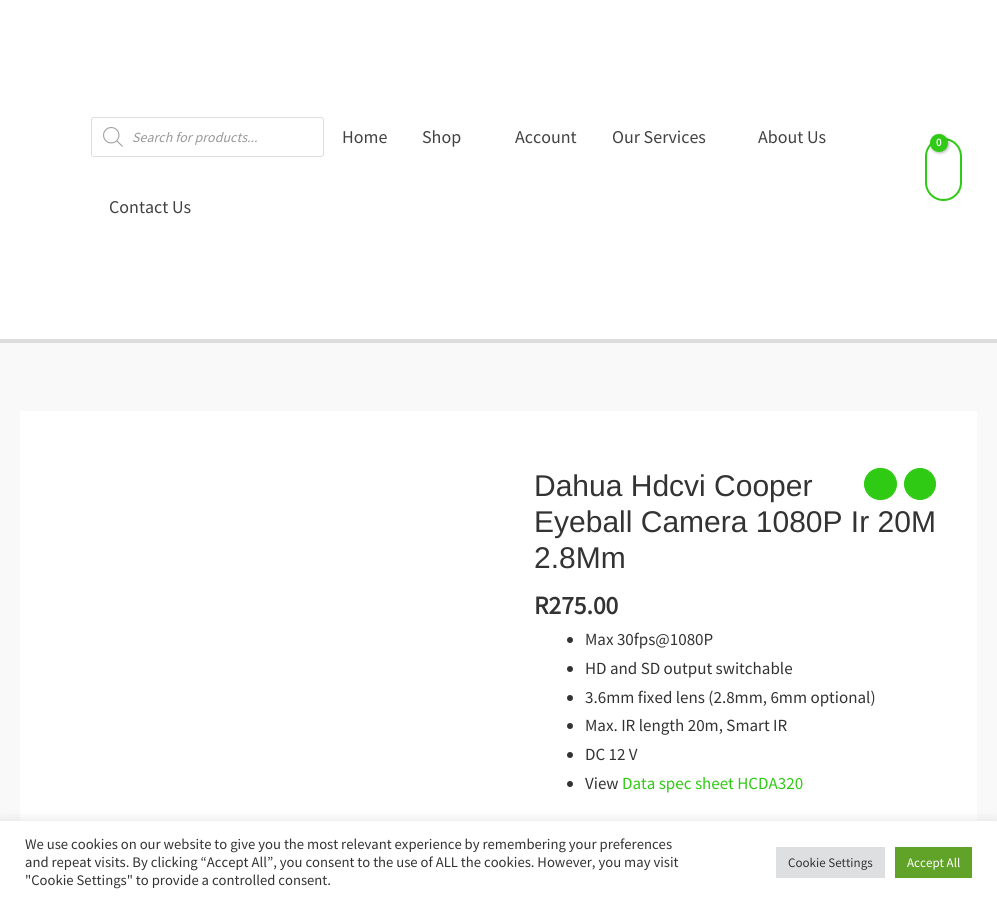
#include <cairo.h>
#include <math.h>
#include <stddef.h>

typedef struct { double x, y; const char *s; } line_t;

static void ink(cairo_t *ctx, unsigned color) {
    cairo_set_source_rgb(ctx, (color >> 16) / 255.0, (color >> 8 & 255) / 255.0, (color & 255) / 255.0);
}

static void round_path(cairo_t *ctx, double x, double y, double w, double h, double r) {
    cairo_new_sub_path(ctx);
    cairo_arc(ctx, x + w - r, y + h - r, r, 0, M_PI / 2);
    cairo_arc(ctx, x + r, y + h - r, r, M_PI / 2, M_PI);
    cairo_arc(ctx, x + r, y + r, r, M_PI, 1.5 * M_PI);
    cairo_arc(ctx, x + w - r, y + r, r, 1.5 * M_PI, 2 * M_PI);
    cairo_close_path(ctx);
}

static void blur_box(cairo_t *ctx, double x, double y, double w, double h, double r, double blur, double alpha) {
    cairo_push_group_with_content(ctx, CAIRO_CONTENT_ALPHA);
    cairo_set_operator(ctx, CAIRO_OPERATOR_SOURCE);
    for (int i = 15; i >= -15 && fmin(w, h) + blur * i / 3 > 0; i -= 2) {
        double e = blur * i / 6;
        cairo_set_source_rgba(ctx, 0, 0, 0, alpha * erfc((i - 1) / 8.5) / 2);
        round_path(ctx, x - e, y - e, w + 2 * e, h + 2 * e, fmax(0, fmin(r + e + blur * .6, fmin(w, h) / 2 + e)));
        cairo_fill(ctx);
    }
    cairo_pattern_t *soft = cairo_pop_group(ctx);
    cairo_mask(ctx, soft);
    cairo_pattern_destroy(soft);
}

static void paste(cairo_t *ctx, const char *path, double x, double y, double w, double h) {
    cairo_surface_t *image = cairo_image_surface_create_from_png(path);
    cairo_save(ctx);
    cairo_set_source_surface(ctx, image, x, y);
    cairo_rectangle(ctx, x, y, w, h);
    cairo_fill(ctx);
    cairo_restore(ctx);
    cairo_surface_destroy(image);
}

int main(void) {
    cairo_surface_t *surface = cairo_image_surface_create(CAIRO_FORMAT_RGB24, 997, 903);
    cairo_t *ctx = cairo_create(surface);
    cairo_font_options_t *options = cairo_font_options_create();
    cairo_font_options_set_hint_metrics(options, CAIRO_HINT_METRICS_OFF);
    cairo_font_options_set_hint_style(options, CAIRO_HINT_STYLE_NONE);
    cairo_set_font_options(ctx, options);
    cairo_set_miter_limit(ctx, 4);
    ink(ctx, 0xF9F9F9);
    cairo_paint(ctx);
    ink(ctx, 0xFFFFFF);
    cairo_rectangle(ctx, 0, 0, 997, 339);
    cairo_fill(ctx);
    ink(ctx, 0xDDDDDD);
    cairo_rectangle(ctx, 0, 339, 997, 4);
    cairo_fill(ctx);
    round_path(ctx, 91.5, 117.5, 232, 39, 2.5);
    cairo_set_line_width(ctx, 1);
    cairo_stroke(ctx);
    paste(ctx, "media/1.png", 103, 127, 20, 20);
    cairo_select_font_face(ctx, "Source Sans Pro", CAIRO_FONT_SLANT_ITALIC, CAIRO_FONT_WEIGHT_NORMAL);
    cairo_set_font_size(ctx, 14);
    ink(ctx, 0x999999);
    cairo_move_to(ctx, 132, 142);
    cairo_show_text(ctx, "Search for products...");
    cairo_select_font_face(ctx, "Source Sans Pro", CAIRO_FONT_SLANT_NORMAL, CAIRO_FONT_WEIGHT_NORMAL);
    cairo_set_font_size(ctx, 18);
    ink(ctx, 0x424242);
    {
        static const line_t items[] = {
            {342, 143, "Home"},
            {422, 143, "Shop"},
            {515, 143, "Account"},
            {612, 143, "Our Services"},
            {758, 143, "About Us"},
            {109, 213, "Contact Us"},
        };
        for (size_t i = 0; i < sizeof items / sizeof *items; i++) {
            cairo_move_to(ctx, items[i].x, items[i].y);
            cairo_show_text(ctx, items[i].s);
        }
    }
    round_path(ctx, 926, 139, 35, 61, 17.5);
    ink(ctx, 0x2FCB14);
    cairo_set_line_width(ctx, 2);
    cairo_stroke(ctx);
    ink(ctx, 0x000000);
    blur_box(ctx, 931, 135, 18, 18, 9, 1.5, 0.3);
    ink(ctx, 0x2FCB14);
    cairo_arc(ctx, 939, 143, 9, 0, 2 * M_PI);
    cairo_fill(ctx);
    cairo_select_font_face(ctx, "Source Sans Pro", CAIRO_FONT_SLANT_NORMAL, CAIRO_FONT_WEIGHT_BOLD);
    cairo_set_font_size(ctx, 11);
    ink(ctx, 0xFFFFFF);
    cairo_move_to(ctx, 936, 146);
    cairo_show_text(ctx, "0");
    cairo_rectangle(ctx, 20, 411, 957, 410);
    cairo_fill(ctx);
    ink(ctx, 0x2FCB14);
    round_path(ctx, 864.5, 468.5, 32, 31, 15.5);
    cairo_fill_preserve(ctx);
    cairo_set_line_width(ctx, 1);
    cairo_stroke(ctx);
    cairo_arc(ctx, 920, 484, 15.5, 0, 2 * M_PI);
    cairo_fill_preserve(ctx);
    cairo_stroke(ctx);
    cairo_select_font_face(ctx, "Liberation Sans", CAIRO_FONT_SLANT_NORMAL, CAIRO_FONT_WEIGHT_NORMAL);
    cairo_set_font_size(ctx, 30);
    ink(ctx, 0x333333);
    {
        static const line_t items[] = {
            {534, 496, "Dahua Hdcvi Cooper"},
            {534, 532, "Eyeball Camera 1080P Ir 20M"},
            {534, 568, "2.8Mm"},
        };
        for (size_t i = 0; i < sizeof items / sizeof *items; i++) {
            cairo_move_to(ctx, items[i].x, items[i].y);
            cairo_show_text(ctx, items[i].s);
        }
    }
    cairo_select_font_face(ctx, "Source Sans Pro", CAIRO_FONT_SLANT_NORMAL, CAIRO_FONT_WEIGHT_BOLD);
    cairo_set_font_size(ctx, 25.5);
    cairo_move_to(ctx, 534, 614);
    cairo_show_text(ctx, "R275.00");
    cairo_new_path(ctx);
    cairo_arc(ctx, 570, 640, 3, 0, 2 * M_PI);
    cairo_fill(ctx);
    cairo_select_font_face(ctx, "Source Sans Pro", CAIRO_FONT_SLANT_NORMAL, CAIRO_FONT_WEIGHT_NORMAL);
    cairo_set_font_size(ctx, 17);
    cairo_move_to(ctx, 585, 645);
    cairo_show_text(ctx, "Max 30fps@1080P");
    cairo_new_path(ctx);
    cairo_arc(ctx, 570, 669, 3, 0, 2 * M_PI);
    cairo_fill(ctx);
    cairo_move_to(ctx, 585, 674);
    cairo_show_text(ctx, "HD and SD output switchable");
    cairo_new_path(ctx);
    cairo_arc(ctx, 570, 698, 3, 0, 2 * M_PI);
    cairo_fill(ctx);
    cairo_move_to(ctx, 585, 703);
    cairo_show_text(ctx, "3.6mm fixed lens (2.8mm, 6mm optional)");
    cairo_new_path(ctx);
    cairo_arc(ctx, 570, 726, 3, 0, 2 * M_PI);
    cairo_fill(ctx);
    cairo_move_to(ctx, 585, 731);
    cairo_show_text(ctx, "Max. IR length 20m, Smart IR");
    cairo_new_path(ctx);
    cairo_arc(ctx, 570, 755, 3, 0, 2 * M_PI);
    cairo_fill(ctx);
    cairo_move_to(ctx, 585, 760);
    cairo_show_text(ctx, "DC 12 V");
    cairo_new_path(ctx);
    cairo_arc(ctx, 570, 784, 3, 0, 2 * M_PI);
    cairo_fill(ctx);
    cairo_move_to(ctx, 585, 789);
    cairo_show_text(ctx, "View");
    ink(ctx, 0x2FCB14);
    cairo_move_to(ctx, 622, 789);
    cairo_show_text(ctx, "Data spec sheet HCDA320");
    ink(ctx, 0xACABAB);
    blur_box(ctx, 0, 820, 997, 82, 0, 5, 0.3);
    ink(ctx, 0xFFFFFF);
    cairo_rectangle(ctx, 0, 821, 997, 82);
    cairo_fill(ctx);
    cairo_set_font_size(ctx, 14.65);
    ink(ctx, 0x333333);
    {
        static const line_t items[] = {
            {25, 849, "We use cookies on our website to give you the most relevant experience by remembering your preferences"},
            {25, 867, "and repeat visits. By clicking “Accept All”, you consent to the use of ALL the cookies. However, you may visit"},
            {25, 885, "\"Cookie Settings\" to provide a controlled consent."},
        };
        for (size_t i = 0; i < sizeof items / sizeof *items; i++) {
            cairo_move_to(ctx, items[i].x, items[i].y);
            cairo_show_text(ctx, items[i].s);
        }
    }
    ink(ctx, 0xDEDFE0);
    cairo_rectangle(ctx, 776, 847, 109, 31);
    cairo_fill(ctx);
    cairo_set_font_size(ctx, 13);
    ink(ctx, 0x333333);
    cairo_move_to(ctx, 788, 867);
    cairo_show_text(ctx, "Cookie Settings");
    ink(ctx, 0x61A229);
    cairo_rectangle(ctx, 895, 847, 77, 31);
    cairo_fill(ctx);
    ink(ctx, 0xFFFFFF);
    cairo_move_to(ctx, 907, 867);
    cairo_show_text(ctx, "Accept All");
    cairo_surface_write_to_png(surface, "image.png");
    cairo_font_options_destroy(options);
    cairo_destroy(ctx);
    cairo_surface_destroy(surface);
    return 0;
}
